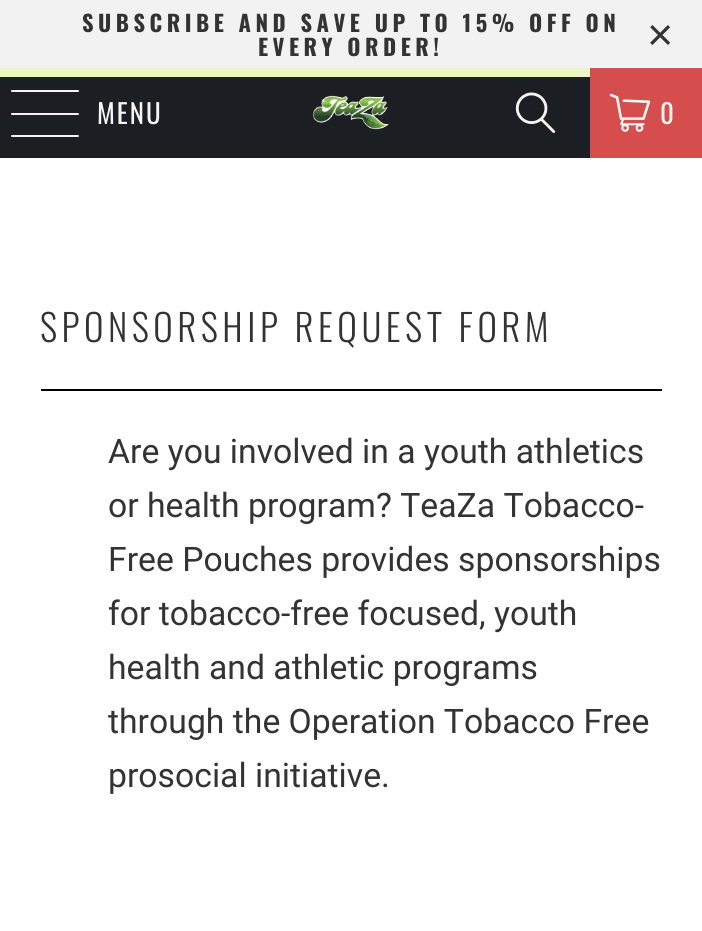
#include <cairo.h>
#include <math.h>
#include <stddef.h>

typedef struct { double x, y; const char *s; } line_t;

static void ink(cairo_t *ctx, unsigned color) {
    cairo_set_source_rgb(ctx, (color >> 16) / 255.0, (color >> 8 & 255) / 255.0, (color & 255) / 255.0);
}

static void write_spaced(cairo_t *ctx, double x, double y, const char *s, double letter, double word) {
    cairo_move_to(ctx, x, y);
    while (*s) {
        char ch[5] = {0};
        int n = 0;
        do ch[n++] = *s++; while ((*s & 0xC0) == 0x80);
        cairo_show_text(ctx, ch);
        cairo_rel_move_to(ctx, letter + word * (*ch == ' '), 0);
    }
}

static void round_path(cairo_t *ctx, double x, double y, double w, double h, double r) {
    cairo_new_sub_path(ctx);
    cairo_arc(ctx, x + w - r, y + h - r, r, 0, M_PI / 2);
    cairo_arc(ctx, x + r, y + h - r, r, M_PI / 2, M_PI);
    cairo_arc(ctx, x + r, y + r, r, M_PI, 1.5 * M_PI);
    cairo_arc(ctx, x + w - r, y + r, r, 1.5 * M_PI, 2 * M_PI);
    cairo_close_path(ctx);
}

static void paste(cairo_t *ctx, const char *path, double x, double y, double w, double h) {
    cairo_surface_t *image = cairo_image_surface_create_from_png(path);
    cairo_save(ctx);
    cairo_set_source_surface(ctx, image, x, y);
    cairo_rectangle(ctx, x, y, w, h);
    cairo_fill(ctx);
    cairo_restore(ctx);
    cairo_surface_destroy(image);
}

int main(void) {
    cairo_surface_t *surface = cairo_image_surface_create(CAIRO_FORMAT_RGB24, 702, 931);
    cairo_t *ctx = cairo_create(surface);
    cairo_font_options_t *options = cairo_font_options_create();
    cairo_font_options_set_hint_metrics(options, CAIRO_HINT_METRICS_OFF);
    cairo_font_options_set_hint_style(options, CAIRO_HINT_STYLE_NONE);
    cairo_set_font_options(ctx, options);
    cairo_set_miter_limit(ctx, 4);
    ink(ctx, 0xFFFFFF);
    cairo_paint(ctx);
    ink(ctx, 0xF2F2F2);
    cairo_rectangle(ctx, 0, 0, 702, 68);
    cairo_fill(ctx);
    cairo_select_font_face(ctx, "Oswald", CAIRO_FONT_SLANT_NORMAL, CAIRO_FONT_WEIGHT_BOLD);
    cairo_set_font_size(ctx, 22.5);
    ink(ctx, 0x333333);
    write_spaced(ctx, 82, 32, "SUBSCRIBE AND SAVE UP TO 15% OFF ON", 4.5, 0);
    write_spaced(ctx, 258, 56, "EVERY ORDER!", 4.5, 0);
    cairo_select_font_face(ctx, "Liberation Sans", CAIRO_FONT_SLANT_NORMAL, CAIRO_FONT_WEIGHT_NORMAL);
    cairo_set_font_size(ctx, 45);
    write_spaced(ctx, 647, 50, "×", 4.5, 0);
    ink(ctx, 0xEAF7C5);
    cairo_rectangle(ctx, 0, 68, 590, 9);
    cairo_fill(ctx);
    ink(ctx, 0x1B1F23);
    cairo_rectangle(ctx, 0, 77, 590, 81);
    cairo_fill(ctx);
    ink(ctx, 0xF4F4F4);
    round_path(ctx, 11, 90, 68, 2, 1);
    cairo_fill(ctx);
    round_path(ctx, 11, 113, 68, 2, 1);
    cairo_fill(ctx);
    round_path(ctx, 11, 135, 68, 2, 1);
    cairo_fill(ctx);
    cairo_select_font_face(ctx, "Oswald", CAIRO_FONT_SLANT_NORMAL, CAIRO_FONT_WEIGHT_NORMAL);
    cairo_set_font_size(ctx, 27);
    write_spaced(ctx, 97, 124, "MENU", 2, 0);
    paste(ctx, "media/1.png", 313, 95, 76, 35);
    paste(ctx, "media/2.png", 515, 92, 41, 41);
    ink(ctx, 0xD54D4D);
    cairo_rectangle(ctx, 590, 68, 112, 90);
    cairo_fill(ctx);
    paste(ctx, "media/3.png", 609, 93, 42, 39);
    ink(ctx, 0xF4F4F4);
    write_spaced(ctx, 660, 124, "0", 2, 0);
    cairo_select_font_face(ctx, "Oswald Light", CAIRO_FONT_SLANT_NORMAL, CAIRO_FONT_WEIGHT_NORMAL);
    cairo_set_font_size(ctx, 37.1);
    ink(ctx, 0x333333);
    write_spaced(ctx, 40, 342, "SPONSORSHIP REQUEST FORM", 4.5, 0);
    ink(ctx, 0x000000);
    cairo_rectangle(ctx, 41, 389, 621, 2);
    cairo_fill(ctx);
    cairo_select_font_face(ctx, "Roboto", CAIRO_FONT_SLANT_NORMAL, CAIRO_FONT_WEIGHT_NORMAL);
    cairo_set_font_size(ctx, 33.75);
    ink(ctx, 0x333333);
    {
        static const line_t items[] = {
            {108, 463, "Are you involved in a youth athletics"},
            {108, 517, "or health program? TeaZa Tobacco-"},
            {108, 571, "Free Pouches provides sponsorships"},
            {108, 625, "for tobacco-free focused, youth"},
            {108, 679, "health and athletic programs"},
            {108, 733, "through the Operation Tobacco Free"},
            {108, 787, "prosocial initiative."},
        };
        for (size_t i = 0; i < sizeof items / sizeof *items; i++) {
            cairo_move_to(ctx, items[i].x, items[i].y);
            cairo_show_text(ctx, items[i].s);
        }
    }
    cairo_surface_write_to_png(surface, "image.png");
    cairo_font_options_destroy(options);
    cairo_destroy(ctx);
    cairo_surface_destroy(surface);
    return 0;
}
